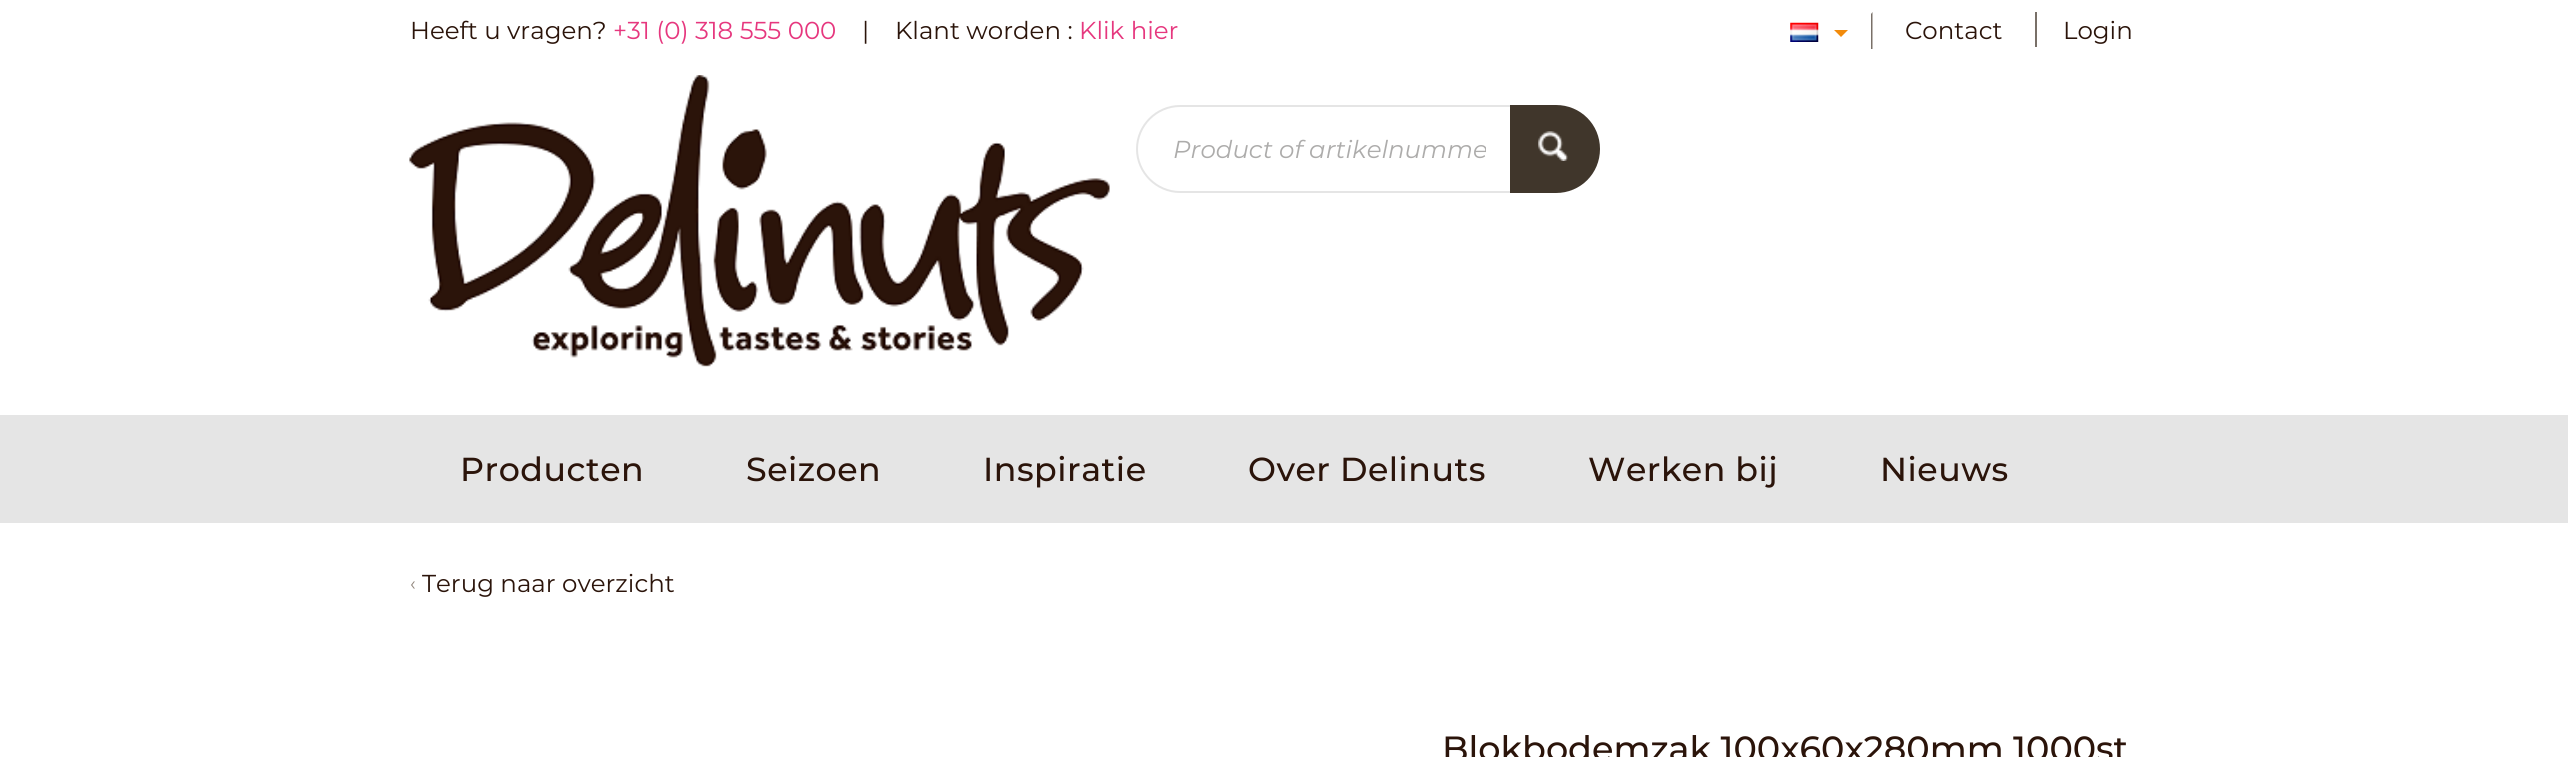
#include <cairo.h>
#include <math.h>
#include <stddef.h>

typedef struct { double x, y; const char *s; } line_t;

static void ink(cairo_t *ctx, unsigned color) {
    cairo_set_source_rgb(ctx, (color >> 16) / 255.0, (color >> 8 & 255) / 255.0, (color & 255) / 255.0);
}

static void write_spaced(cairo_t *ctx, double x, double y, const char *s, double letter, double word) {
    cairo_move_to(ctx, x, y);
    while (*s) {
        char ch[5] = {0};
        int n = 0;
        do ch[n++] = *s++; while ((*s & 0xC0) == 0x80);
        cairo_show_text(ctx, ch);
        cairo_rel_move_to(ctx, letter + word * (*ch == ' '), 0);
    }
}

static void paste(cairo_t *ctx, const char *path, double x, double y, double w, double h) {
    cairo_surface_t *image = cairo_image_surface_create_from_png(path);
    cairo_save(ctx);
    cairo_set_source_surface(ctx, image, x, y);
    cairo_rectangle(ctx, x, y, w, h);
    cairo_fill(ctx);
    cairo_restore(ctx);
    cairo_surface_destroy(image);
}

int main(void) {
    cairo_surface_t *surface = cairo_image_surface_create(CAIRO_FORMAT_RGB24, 2568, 757);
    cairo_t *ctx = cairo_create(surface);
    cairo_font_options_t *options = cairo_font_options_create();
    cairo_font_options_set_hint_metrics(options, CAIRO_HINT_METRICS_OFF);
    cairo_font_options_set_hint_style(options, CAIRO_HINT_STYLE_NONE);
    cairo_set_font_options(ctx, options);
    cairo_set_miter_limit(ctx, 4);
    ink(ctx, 0xFFFFFF);
    cairo_paint(ctx);
    cairo_select_font_face(ctx, "Montserrat", CAIRO_FONT_SLANT_NORMAL, CAIRO_FONT_WEIGHT_NORMAL);
    cairo_set_font_size(ctx, 24.5);
    ink(ctx, 0x2B140A);
    cairo_move_to(ctx, 410, 39);
    cairo_show_text(ctx, "Heeft u vragen?");
    ink(ctx, 0xE6377E);
    cairo_move_to(ctx, 613, 39);
    cairo_show_text(ctx, "+31 (0) 318 555 000");
    ink(ctx, 0x2B140A);
    cairo_move_to(ctx, 862, 39);
    cairo_show_text(ctx, "|    Klant worden :");
    ink(ctx, 0xE6377E);
    cairo_move_to(ctx, 1079, 39);
    cairo_show_text(ctx, "Klik hier");
    ink(ctx, 0x797068);
    cairo_new_path(ctx);
    cairo_move_to(ctx, 1872.5, 12);
    cairo_line_to(ctx, 1872.5, 49);
    cairo_line_to(ctx, 1871, 49);
    cairo_line_to(ctx, 1871, 14);
    cairo_close_path(ctx);
    cairo_fill(ctx);
    paste(ctx, "media/1.png", 1790, 22, 29, 20);
    ink(ctx, 0xF28B0C);
    cairo_new_path(ctx);
    cairo_move_to(ctx, 1834, 30);
    cairo_line_to(ctx, 1848, 30);
    cairo_line_to(ctx, 1841, 37);
    cairo_close_path(ctx);
    cairo_fill(ctx);
    ink(ctx, 0x2B140A);
    cairo_move_to(ctx, 1905, 39);
    cairo_show_text(ctx, "Contact");
    ink(ctx, 0x797068);
    cairo_rectangle(ctx, 2035, 12, 2, 35);
    cairo_fill(ctx);
    ink(ctx, 0x2B140A);
    cairo_move_to(ctx, 2063, 39);
    cairo_show_text(ctx, "Login");
    paste(ctx, "media/2.png", 409, 75, 701, 292);
    cairo_new_path(ctx);
    cairo_move_to(ctx, 1180, 106);
    cairo_line_to(ctx, 1511, 106);
    cairo_line_to(ctx, 1511, 192);
    cairo_line_to(ctx, 1180, 192);
    cairo_curve_to(ctx, 1156.5, 192, 1137, 172.5, 1137, 149);
    cairo_curve_to(ctx, 1137, 125.5, 1156.5, 106, 1180, 106);
    cairo_close_path(ctx);
    ink(ctx, 0xE5E5E5);
    cairo_stroke(ctx);
    cairo_save(ctx);
    cairo_rectangle(ctx, 1173, 133, 313, 32);
    cairo_clip(ctx);
    cairo_select_font_face(ctx, "Montserrat", CAIRO_FONT_SLANT_ITALIC, CAIRO_FONT_WEIGHT_NORMAL);
    ink(ctx, 0xADACAB);
    cairo_move_to(ctx, 1173, 158);
    cairo_show_text(ctx, "Product of artikelnumme");
    cairo_restore(ctx);
    ink(ctx, 0x40362B);
    cairo_new_path(ctx);
    cairo_move_to(ctx, 1510, 105);
    cairo_line_to(ctx, 1556, 105);
    cairo_curve_to(ctx, 1580.5, 105, 1600, 124.5, 1600, 149);
    cairo_curve_to(ctx, 1600, 173.5, 1580.5, 193, 1556, 193);
    cairo_line_to(ctx, 1510, 193);
    cairo_close_path(ctx);
    cairo_fill(ctx);
    paste(ctx, "media/3.png", 1538, 131, 30, 30);
    ink(ctx, 0xE5E5E5);
    cairo_rectangle(ctx, 0, 415, 2568, 108);
    cairo_fill(ctx);
    cairo_select_font_face(ctx, "Montserrat Medium", CAIRO_FONT_SLANT_NORMAL, CAIRO_FONT_WEIGHT_NORMAL);
    cairo_set_font_size(ctx, 33.25);
    ink(ctx, 0x2B140A);
    {
        static const line_t items[] = {
            {460, 481, "Producten"},
            {746, 481, "Seizoen"},
            {983, 481, "Inspiratie"},
            {1248, 481, "Over Delinuts"},
            {1588, 481, "Werken bij"},
            {1880, 481, "Nieuws"},
        };
        for (size_t i = 0; i < sizeof items / sizeof *items; i++) {
            write_spaced(ctx, items[i].x, items[i].y, items[i].s, 0.5, 0);
        }
    }
    cairo_select_font_face(ctx, "Montserrat", CAIRO_FONT_SLANT_NORMAL, CAIRO_FONT_WEIGHT_NORMAL);
    cairo_set_font_size(ctx, 19);
    ink(ctx, 0x91867D);
    cairo_move_to(ctx, 410, 590);
    cairo_show_text(ctx, "‹");
    cairo_set_font_size(ctx, 24.5);
    ink(ctx, 0x2B140A);
    cairo_move_to(ctx, 422, 592);
    cairo_show_text(ctx, "Terug naar overzicht");
    cairo_select_font_face(ctx, "Montserrat Medium", CAIRO_FONT_SLANT_NORMAL, CAIRO_FONT_WEIGHT_NORMAL);
    cairo_set_font_size(ctx, 35);
    cairo_move_to(ctx, 1442, 761);
    cairo_show_text(ctx, "Blokbodemzak 100x60x280mm 1000st");
    cairo_surface_write_to_png(surface, "image.png");
    cairo_font_options_destroy(options);
    cairo_destroy(ctx);
    cairo_surface_destroy(surface);
    return 0;
}
